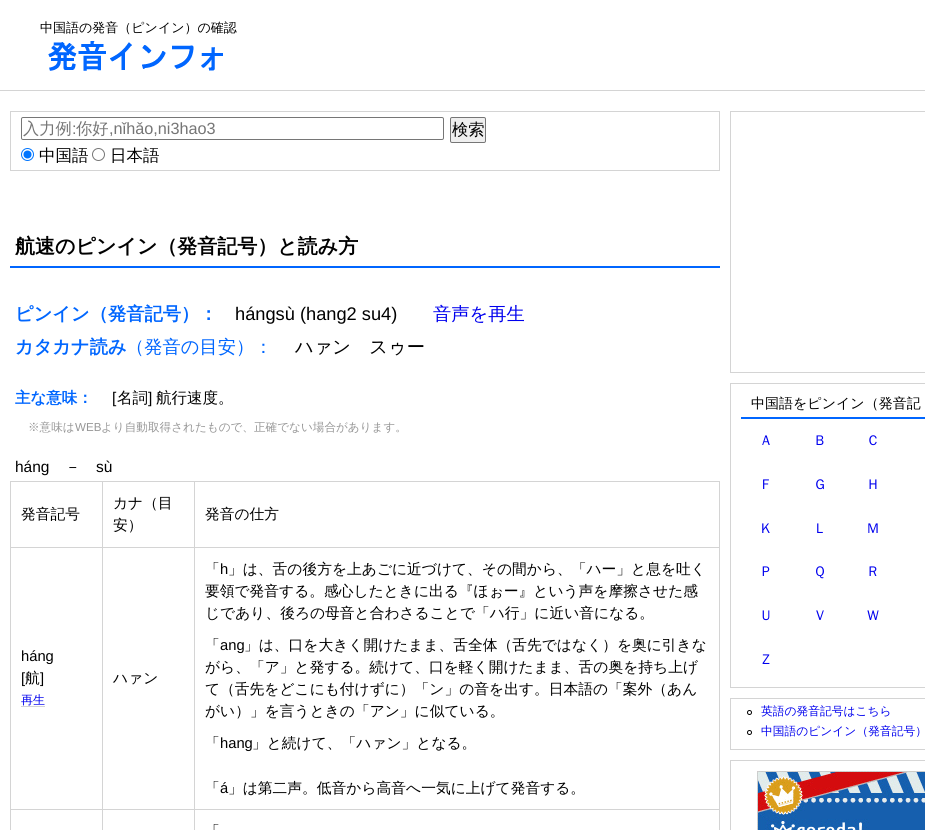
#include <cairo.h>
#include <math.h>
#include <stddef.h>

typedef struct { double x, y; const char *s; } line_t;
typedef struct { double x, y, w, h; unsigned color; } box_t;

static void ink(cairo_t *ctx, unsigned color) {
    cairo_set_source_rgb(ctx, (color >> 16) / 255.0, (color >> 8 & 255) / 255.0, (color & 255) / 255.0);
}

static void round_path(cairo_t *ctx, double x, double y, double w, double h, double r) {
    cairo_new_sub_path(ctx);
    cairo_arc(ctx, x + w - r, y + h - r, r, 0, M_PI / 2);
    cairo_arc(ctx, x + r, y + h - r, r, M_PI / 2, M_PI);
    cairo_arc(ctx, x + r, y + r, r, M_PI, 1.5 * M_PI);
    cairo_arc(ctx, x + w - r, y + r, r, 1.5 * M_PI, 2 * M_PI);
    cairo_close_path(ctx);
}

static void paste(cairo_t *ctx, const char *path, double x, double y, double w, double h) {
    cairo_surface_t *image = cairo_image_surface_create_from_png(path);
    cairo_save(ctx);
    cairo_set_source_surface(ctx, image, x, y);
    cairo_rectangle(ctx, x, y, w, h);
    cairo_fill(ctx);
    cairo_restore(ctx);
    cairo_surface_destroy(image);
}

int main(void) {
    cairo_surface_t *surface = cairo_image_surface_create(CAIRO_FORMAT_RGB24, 925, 830);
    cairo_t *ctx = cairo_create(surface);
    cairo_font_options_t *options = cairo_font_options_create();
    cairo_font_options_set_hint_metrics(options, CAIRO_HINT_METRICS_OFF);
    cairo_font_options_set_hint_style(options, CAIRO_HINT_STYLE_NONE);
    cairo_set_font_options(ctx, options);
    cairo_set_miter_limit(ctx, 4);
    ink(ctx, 0xFFFFFF);
    cairo_paint(ctx);
    ink(ctx, 0xD4D4D4);
    cairo_rectangle(ctx, 0, 90, 925, 1);
    cairo_fill(ctx);
    cairo_select_font_face(ctx, "WenQuanYi Zen Hei Medium", CAIRO_FONT_SLANT_NORMAL, CAIRO_FONT_WEIGHT_NORMAL);
    cairo_set_font_size(ctx, 13);
    ink(ctx, 0x000000);
    cairo_move_to(ctx, 40, 32);
    cairo_show_text(ctx, "中国語の発音（ピンイン）の確認");
    paste(ctx, "media/1.png", 48, 41, 175, 30);
    cairo_rectangle(ctx, 10.5, 111.5, 709, 59);
    ink(ctx, 0xD4D4D4);
    cairo_set_line_width(ctx, 1);
    cairo_stroke(ctx);
    round_path(ctx, 21.5, 117.5, 422, 22, 1.5);
    ink(ctx, 0x767676);
    cairo_stroke(ctx);
    cairo_set_font_size(ctx, 16.25);
    ink(ctx, 0x757575);
    cairo_move_to(ctx, 23, 134);
    cairo_show_text(ctx, "入力例");
    cairo_select_font_face(ctx, "Liberation Sans", CAIRO_FONT_SLANT_NORMAL, CAIRO_FONT_WEIGHT_NORMAL);
    cairo_move_to(ctx, 72, 134);
    cairo_show_text(ctx, ":");
    cairo_select_font_face(ctx, "WenQuanYi Zen Hei Medium", CAIRO_FONT_SLANT_NORMAL, CAIRO_FONT_WEIGHT_NORMAL);
    cairo_move_to(ctx, 76, 134);
    cairo_show_text(ctx, "你好");
    cairo_select_font_face(ctx, "Liberation Sans", CAIRO_FONT_SLANT_NORMAL, CAIRO_FONT_WEIGHT_NORMAL);
    cairo_move_to(ctx, 109, 134);
    cairo_show_text(ctx, ",nǐhǎo,ni3hao3");
    cairo_new_path(ctx);
    cairo_arc(ctx, 27.5, 154.5, 6, 0, 2 * M_PI);
    ink(ctx, 0x0075FF);
    cairo_stroke(ctx);
    cairo_arc(ctx, 27.5, 154.5, 4, 0, 2 * M_PI);
    cairo_fill(ctx);
    cairo_select_font_face(ctx, "WenQuanYi Zen Hei Medium", CAIRO_FONT_SLANT_NORMAL, CAIRO_FONT_WEIGHT_NORMAL);
    cairo_set_font_size(ctx, 16.5);
    ink(ctx, 0x000000);
    cairo_move_to(ctx, 39, 161);
    cairo_show_text(ctx, "中国語");
    cairo_new_path(ctx);
    cairo_arc(ctx, 98.5, 154.5, 6, 0, 2 * M_PI);
    ink(ctx, 0x767676);
    cairo_stroke(ctx);
    ink(ctx, 0x000000);
    cairo_move_to(ctx, 110, 161);
    cairo_show_text(ctx, "日本語");
    ink(ctx, 0xEFEFEF);
    round_path(ctx, 450.5, 117.5, 35, 25, 1.5);
    cairo_fill_preserve(ctx);
    ink(ctx, 0x767676);
    cairo_stroke(ctx);
    cairo_set_font_size(ctx, 16.25);
    ink(ctx, 0x000000);
    cairo_move_to(ctx, 452, 135);
    cairo_show_text(ctx, "検索");
    ink(ctx, 0x0066FF);
    cairo_rectangle(ctx, 10, 266, 710, 2);
    cairo_fill(ctx);
    cairo_select_font_face(ctx, "WenQuanYi Zen Hei", CAIRO_FONT_SLANT_NORMAL, CAIRO_FONT_WEIGHT_BOLD);
    cairo_set_font_size(ctx, 20);
    ink(ctx, 0x000000);
    cairo_move_to(ctx, 15, 253);
    cairo_show_text(ctx, "航速のピンイン（発音記号）と読み方");
    cairo_set_font_size(ctx, 18.25);
    ink(ctx, 0x0066FF);
    cairo_move_to(ctx, 15, 320);
    cairo_show_text(ctx, "ピンイン（発音記号）：");
    cairo_select_font_face(ctx, "Liberation Sans", CAIRO_FONT_SLANT_NORMAL, CAIRO_FONT_WEIGHT_NORMAL);
    ink(ctx, 0x000000);
    cairo_move_to(ctx, 235, 320);
    cairo_show_text(ctx, "hángsù (hang2 su4)");
    cairo_select_font_face(ctx, "WenQuanYi Zen Hei Medium", CAIRO_FONT_SLANT_NORMAL, CAIRO_FONT_WEIGHT_NORMAL);
    ink(ctx, 0x0000EE);
    cairo_move_to(ctx, 433, 320);
    cairo_show_text(ctx, "音声を再生");
    cairo_select_font_face(ctx, "WenQuanYi Zen Hei", CAIRO_FONT_SLANT_NORMAL, CAIRO_FONT_WEIGHT_BOLD);
    ink(ctx, 0x0066FF);
    cairo_move_to(ctx, 15, 353);
    cairo_show_text(ctx, "カタカナ読み");
    cairo_select_font_face(ctx, "WenQuanYi Zen Hei Medium", CAIRO_FONT_SLANT_NORMAL, CAIRO_FONT_WEIGHT_NORMAL);
    cairo_move_to(ctx, 126, 353);
    cairo_show_text(ctx, "（発音の目安）：");
    ink(ctx, 0x000000);
    cairo_move_to(ctx, 295, 353);
    cairo_show_text(ctx, "ハァン　スゥー");
    cairo_select_font_face(ctx, "WenQuanYi Zen Hei", CAIRO_FONT_SLANT_NORMAL, CAIRO_FONT_WEIGHT_BOLD);
    cairo_set_font_size(ctx, 15.5);
    ink(ctx, 0x0066FF);
    cairo_move_to(ctx, 15, 403);
    cairo_show_text(ctx, "主な意味：");
    cairo_select_font_face(ctx, "Liberation Sans", CAIRO_FONT_SLANT_NORMAL, CAIRO_FONT_WEIGHT_NORMAL);
    ink(ctx, 0x000000);
    cairo_move_to(ctx, 112, 403);
    cairo_show_text(ctx, "[");
    cairo_select_font_face(ctx, "WenQuanYi Zen Hei Medium", CAIRO_FONT_SLANT_NORMAL, CAIRO_FONT_WEIGHT_NORMAL);
    cairo_move_to(ctx, 117, 403);
    cairo_show_text(ctx, "名詞");
    cairo_select_font_face(ctx, "Liberation Sans", CAIRO_FONT_SLANT_NORMAL, CAIRO_FONT_WEIGHT_NORMAL);
    cairo_move_to(ctx, 148, 403);
    cairo_show_text(ctx, "]");
    cairo_select_font_face(ctx, "WenQuanYi Zen Hei Medium", CAIRO_FONT_SLANT_NORMAL, CAIRO_FONT_WEIGHT_NORMAL);
    cairo_move_to(ctx, 156, 403);
    cairo_show_text(ctx, "航行速度。");
    cairo_set_font_size(ctx, 11.6);
    ink(ctx, 0x969696);
    cairo_move_to(ctx, 28, 431);
    cairo_show_text(ctx, "※意味は");
    cairo_select_font_face(ctx, "Liberation Sans", CAIRO_FONT_SLANT_NORMAL, CAIRO_FONT_WEIGHT_NORMAL);
    cairo_move_to(ctx, 75, 431);
    cairo_show_text(ctx, "WEB");
    cairo_select_font_face(ctx, "WenQuanYi Zen Hei Medium", CAIRO_FONT_SLANT_NORMAL, CAIRO_FONT_WEIGHT_NORMAL);
    cairo_move_to(ctx, 101, 431);
    cairo_show_text(ctx, "より自動取得されたもので、正確でない場合があります。");
    cairo_select_font_face(ctx, "Liberation Sans", CAIRO_FONT_SLANT_NORMAL, CAIRO_FONT_WEIGHT_NORMAL);
    cairo_set_font_size(ctx, 15.5);
    ink(ctx, 0x000000);
    cairo_move_to(ctx, 15, 472);
    cairo_show_text(ctx, "háng");
    cairo_select_font_face(ctx, "WenQuanYi Zen Hei Medium", CAIRO_FONT_SLANT_NORMAL, CAIRO_FONT_WEIGHT_NORMAL);
    cairo_move_to(ctx, 65, 472);
    cairo_show_text(ctx, "－");
    cairo_select_font_face(ctx, "Liberation Sans", CAIRO_FONT_SLANT_NORMAL, CAIRO_FONT_WEIGHT_NORMAL);
    cairo_move_to(ctx, 96, 472);
    cairo_show_text(ctx, "sù");
    {
        static const box_t items[] = {
            {194, 481, 526, 1, 0xD4D4D4},
            {194, 547, 526, 1, 0xD4D4D4},
            {194, 809, 526, 1, 0xD4D4D4},
            {194, 809, 1, 21, 0xD4D4D4},
            {102, 809, 93, 1, 0xD4D4D4},
            {194, 547, 1, 263, 0xD4D4D4},
            {102, 547, 93, 1, 0xD4D4D4},
            {194, 481, 1, 67, 0xD4D4D4},
            {102, 481, 93, 1, 0xD4D4D4},
            {102, 809, 1, 21, 0xD4D4D4},
            {10, 809, 93, 1, 0xD4D4D4},
            {102, 547, 1, 263, 0xD4D4D4},
            {10, 547, 93, 1, 0xD4D4D4},
            {102, 481, 1, 67, 0xD4D4D4},
            {10, 481, 93, 1, 0xD4D4D4},
            {10, 809, 1, 21, 0xD4D4D4},
            {10, 547, 1, 263, 0xD4D4D4},
            {10, 481, 1, 67, 0xD4D4D4},
        };
        for (size_t i = 0; i < sizeof items / sizeof *items; i++) {
            ink(ctx, items[i].color);
            cairo_rectangle(ctx, items[i].x, items[i].y, items[i].w, items[i].h);
            cairo_fill(ctx);
        }
    }
    cairo_select_font_face(ctx, "WenQuanYi Zen Hei Medium", CAIRO_FONT_SLANT_NORMAL, CAIRO_FONT_WEIGHT_NORMAL);
    cairo_set_font_size(ctx, 14.75);
    ink(ctx, 0x000000);
    {
        static const line_t items[] = {
            {21, 519, "発音記号"},
            {113, 508, "カナ（目"},
            {113, 530, "安）"},
        };
        for (size_t i = 0; i < sizeof items / sizeof *items; i++) {
            cairo_move_to(ctx, items[i].x, items[i].y);
            cairo_show_text(ctx, items[i].s);
        }
    }
    {
        static const box_t items[] = {
            {719, 809, 1, 21, 0xD4D4D4},
            {719, 547, 1, 263, 0xD4D4D4},
            {719, 481, 1, 67, 0xD4D4D4},
        };
        for (size_t i = 0; i < sizeof items / sizeof *items; i++) {
            ink(ctx, items[i].color);
            cairo_rectangle(ctx, items[i].x, items[i].y, items[i].w, items[i].h);
            cairo_fill(ctx);
        }
    }
    ink(ctx, 0x000000);
    cairo_move_to(ctx, 205, 519);
    cairo_show_text(ctx, "発音の仕方");
    cairo_select_font_face(ctx, "Liberation Sans", CAIRO_FONT_SLANT_NORMAL, CAIRO_FONT_WEIGHT_NORMAL);
    cairo_move_to(ctx, 21, 661);
    cairo_show_text(ctx, "háng");
    cairo_move_to(ctx, 21, 683);
    cairo_show_text(ctx, "[");
    cairo_select_font_face(ctx, "WenQuanYi Zen Hei Medium", CAIRO_FONT_SLANT_NORMAL, CAIRO_FONT_WEIGHT_NORMAL);
    cairo_move_to(ctx, 25, 683);
    cairo_show_text(ctx, "航");
    cairo_select_font_face(ctx, "Liberation Sans", CAIRO_FONT_SLANT_NORMAL, CAIRO_FONT_WEIGHT_NORMAL);
    cairo_move_to(ctx, 40, 683);
    cairo_show_text(ctx, "]");
    cairo_select_font_face(ctx, "WenQuanYi Zen Hei Medium", CAIRO_FONT_SLANT_NORMAL, CAIRO_FONT_WEIGHT_NORMAL);
    cairo_set_font_size(ctx, 12);
    ink(ctx, 0x0000EE);
    cairo_move_to(ctx, 21, 704);
    cairo_show_text(ctx, "再生");
    ink(ctx, 0xD4D4D4);
    cairo_rectangle(ctx, 21, 706, 24, 1);
    cairo_fill(ctx);
    cairo_set_font_size(ctx, 14.75);
    ink(ctx, 0x000000);
    cairo_move_to(ctx, 113, 683);
    cairo_show_text(ctx, "ハァン");
    cairo_move_to(ctx, 205, 574);
    cairo_show_text(ctx, "「");
    cairo_select_font_face(ctx, "Liberation Sans", CAIRO_FONT_SLANT_NORMAL, CAIRO_FONT_WEIGHT_NORMAL);
    cairo_move_to(ctx, 220, 574);
    cairo_show_text(ctx, "h");
    cairo_select_font_face(ctx, "WenQuanYi Zen Hei Medium", CAIRO_FONT_SLANT_NORMAL, CAIRO_FONT_WEIGHT_NORMAL);
    {
        static const line_t items[] = {
            {228, 574, "」は、舌の後方を上あごに近づけて、その間から、「ハー」と息を吐く"},
            {205, 596, "要領で発音する。感心したときに出る『ほぉー』という声を摩擦させた感"},
            {205, 618, "じであり、後ろの母音と合わさることで「ハ行」に近い音になる。"},
            {205, 650, "「"},
        };
        for (size_t i = 0; i < sizeof items / sizeof *items; i++) {
            cairo_move_to(ctx, items[i].x, items[i].y);
            cairo_show_text(ctx, items[i].s);
        }
    }
    cairo_select_font_face(ctx, "Liberation Sans", CAIRO_FONT_SLANT_NORMAL, CAIRO_FONT_WEIGHT_NORMAL);
    cairo_move_to(ctx, 220, 650);
    cairo_show_text(ctx, "ang");
    cairo_select_font_face(ctx, "WenQuanYi Zen Hei Medium", CAIRO_FONT_SLANT_NORMAL, CAIRO_FONT_WEIGHT_NORMAL);
    {
        static const line_t items[] = {
            {244, 650, "」は、口を大きく開けたまま、舌全体（舌先ではなく）を奥に引きな"},
            {205, 672, "がら、「ア」と発する。続けて、口を軽く開けたまま、舌の奥を持ち上げ"},
            {205, 694, "て（舌先をどこにも付けずに）「ン」の音を出す。日本語の「案外（あん"},
            {205, 716, "がい）」を言うときの「アン」に似ている。"},
            {205, 748, "「"},
        };
        for (size_t i = 0; i < sizeof items / sizeof *items; i++) {
            cairo_move_to(ctx, items[i].x, items[i].y);
            cairo_show_text(ctx, items[i].s);
        }
    }
    cairo_select_font_face(ctx, "Liberation Sans", CAIRO_FONT_SLANT_NORMAL, CAIRO_FONT_WEIGHT_NORMAL);
    cairo_move_to(ctx, 220, 748);
    cairo_show_text(ctx, "hang");
    cairo_select_font_face(ctx, "WenQuanYi Zen Hei Medium", CAIRO_FONT_SLANT_NORMAL, CAIRO_FONT_WEIGHT_NORMAL);
    cairo_move_to(ctx, 252, 748);
    cairo_show_text(ctx, "」と続けて、「ハァン」となる。");
    cairo_move_to(ctx, 205, 793);
    cairo_show_text(ctx, "「");
    cairo_select_font_face(ctx, "Liberation Sans", CAIRO_FONT_SLANT_NORMAL, CAIRO_FONT_WEIGHT_NORMAL);
    cairo_move_to(ctx, 220, 793);
    cairo_show_text(ctx, "á");
    cairo_select_font_face(ctx, "WenQuanYi Zen Hei Medium", CAIRO_FONT_SLANT_NORMAL, CAIRO_FONT_WEIGHT_NORMAL);
    cairo_move_to(ctx, 228, 793);
    cairo_show_text(ctx, "」は第二声。低音から高音へ一気に上げて発音する。");
    cairo_move_to(ctx, 205, 836);
    cairo_show_text(ctx, "「");
    cairo_rectangle(ctx, 730.5, 111.5, 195, 261);
    ink(ctx, 0xD4D4D4);
    cairo_stroke(ctx);
    cairo_rectangle(ctx, 730.5, 383.5, 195, 304);
    cairo_stroke(ctx);
    ink(ctx, 0x0066FF);
    cairo_rectangle(ctx, 741, 417, 184, 2);
    cairo_fill(ctx);
    cairo_set_font_size(ctx, 14);
    ink(ctx, 0x000000);
    cairo_move_to(ctx, 751, 408);
    cairo_show_text(ctx, "中国語をピンイン（発音記");
    ink(ctx, 0x0000EE);
    {
        static const line_t items[] = {
            {759, 445, "Ａ"},
            {813, 445, "Ｂ"},
            {866, 445, "Ｃ"},
            {759, 489, "Ｆ"},
            {813, 489, "Ｇ"},
            {866, 489, "Ｈ"},
            {759, 533, "Ｋ"},
            {813, 533, "Ｌ"},
            {866, 533, "Ｍ"},
            {759, 576, "Ｐ"},
            {813, 576, "Ｑ"},
            {866, 576, "Ｒ"},
            {759, 620, "Ｕ"},
            {813, 620, "Ｖ"},
            {866, 620, "Ｗ"},
            {759, 664, "Ｚ"},
        };
        for (size_t i = 0; i < sizeof items / sizeof *items; i++) {
            cairo_move_to(ctx, items[i].x, items[i].y);
            cairo_show_text(ctx, items[i].s);
        }
    }
    cairo_rectangle(ctx, 730.5, 698.5, 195, 51);
    ink(ctx, 0xD4D4D4);
    cairo_stroke(ctx);
    cairo_arc(ctx, 749.5, 712.5, 2, 0, 2 * M_PI);
    ink(ctx, 0x000000);
    cairo_stroke(ctx);
    cairo_set_font_size(ctx, 11.75);
    ink(ctx, 0x0000EE);
    cairo_move_to(ctx, 761, 715);
    cairo_show_text(ctx, "英語の発音記号はこちら");
    cairo_new_path(ctx);
    cairo_arc(ctx, 749.5, 732.5, 2, 0, 2 * M_PI);
    ink(ctx, 0x000000);
    cairo_stroke(ctx);
    ink(ctx, 0x0000EE);
    cairo_move_to(ctx, 761, 735);
    cairo_show_text(ctx, "中国語のピンイン（発音記号）");
    cairo_rectangle(ctx, 730.5, 760.5, 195, 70);
    ink(ctx, 0xD4D4D4);
    cairo_stroke(ctx);
    paste(ctx, "media/2.png", 757, 771, 168, 59);
    cairo_surface_write_to_png(surface, "image.png");
    cairo_font_options_destroy(options);
    cairo_destroy(ctx);
    cairo_surface_destroy(surface);
    return 0;
}
